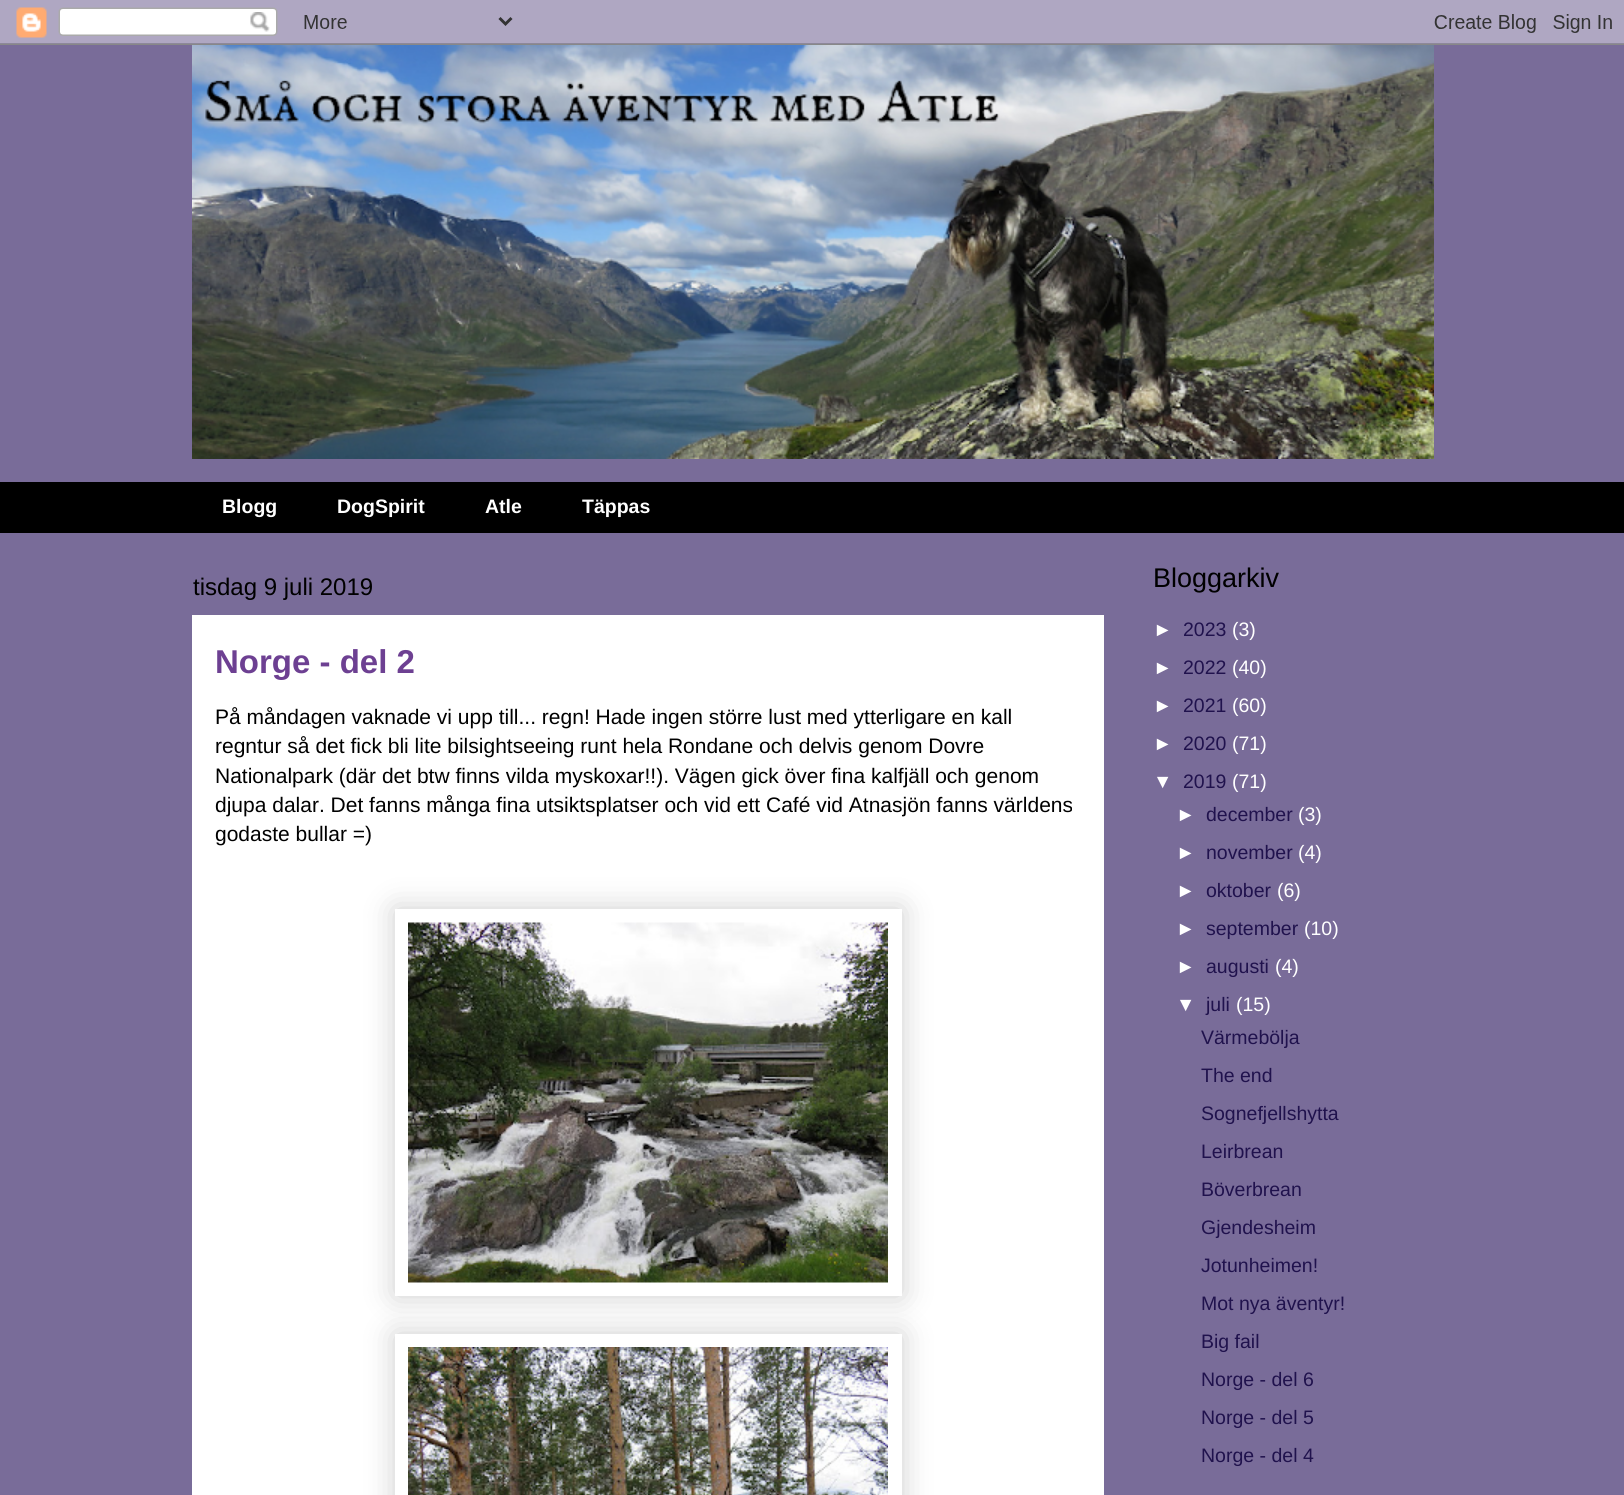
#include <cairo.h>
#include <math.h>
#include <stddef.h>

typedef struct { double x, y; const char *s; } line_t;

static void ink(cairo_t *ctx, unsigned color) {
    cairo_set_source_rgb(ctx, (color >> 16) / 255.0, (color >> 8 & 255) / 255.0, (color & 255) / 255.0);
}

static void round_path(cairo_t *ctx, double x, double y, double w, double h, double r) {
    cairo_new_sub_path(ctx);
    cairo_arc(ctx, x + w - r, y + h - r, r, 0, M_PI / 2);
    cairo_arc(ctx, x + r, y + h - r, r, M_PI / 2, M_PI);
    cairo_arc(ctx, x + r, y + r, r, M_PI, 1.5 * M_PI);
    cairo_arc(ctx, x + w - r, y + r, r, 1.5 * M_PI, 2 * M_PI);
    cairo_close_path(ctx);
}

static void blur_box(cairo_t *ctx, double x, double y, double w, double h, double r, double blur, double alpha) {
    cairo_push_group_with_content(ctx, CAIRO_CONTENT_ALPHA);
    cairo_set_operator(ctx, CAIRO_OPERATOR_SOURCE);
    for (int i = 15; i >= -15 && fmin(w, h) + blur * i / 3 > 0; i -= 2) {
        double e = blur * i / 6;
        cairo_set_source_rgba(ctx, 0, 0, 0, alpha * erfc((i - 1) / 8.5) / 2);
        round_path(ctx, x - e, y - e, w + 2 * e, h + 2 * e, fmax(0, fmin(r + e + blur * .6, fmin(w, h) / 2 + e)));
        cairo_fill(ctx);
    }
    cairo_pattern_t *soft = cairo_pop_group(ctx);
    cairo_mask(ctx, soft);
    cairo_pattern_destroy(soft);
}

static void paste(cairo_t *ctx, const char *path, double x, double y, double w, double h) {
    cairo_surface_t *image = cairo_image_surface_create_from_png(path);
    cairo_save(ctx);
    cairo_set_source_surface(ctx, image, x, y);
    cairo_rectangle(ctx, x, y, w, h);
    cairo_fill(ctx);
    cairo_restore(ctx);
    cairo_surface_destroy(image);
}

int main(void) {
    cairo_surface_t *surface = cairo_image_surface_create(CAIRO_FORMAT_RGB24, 1624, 1495);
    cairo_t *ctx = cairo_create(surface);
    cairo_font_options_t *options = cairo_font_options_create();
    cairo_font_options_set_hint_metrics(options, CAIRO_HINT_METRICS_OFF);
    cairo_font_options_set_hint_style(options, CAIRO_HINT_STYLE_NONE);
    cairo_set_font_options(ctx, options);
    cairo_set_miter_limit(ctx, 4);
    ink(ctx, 0x796C99);
    cairo_paint(ctx);
    paste(ctx, "media/1.png", 0, 0, 1624, 45);
    paste(ctx, "media/2.png", 192, 45, 1242, 414);
    ink(ctx, 0x000000);
    cairo_rectangle(ctx, 0, 482, 1624, 51);
    cairo_fill(ctx);
    cairo_select_font_face(ctx, "Liberation Sans", CAIRO_FONT_SLANT_NORMAL, CAIRO_FONT_WEIGHT_BOLD);
    cairo_set_font_size(ctx, 19.5);
    ink(ctx, 0xFFFFFF);
    {
        static const line_t items[] = {
            {222, 513, "Blogg"},
            {337, 513, "DogSpirit"},
            {485, 513, "Atle"},
            {582, 513, "Täppas"},
        };
        for (size_t i = 0; i < sizeof items / sizeof *items; i++) {
            cairo_move_to(ctx, items[i].x, items[i].y);
            cairo_show_text(ctx, items[i].s);
        }
    }
    cairo_rectangle(ctx, 192, 615, 912, 880);
    cairo_fill(ctx);
    cairo_select_font_face(ctx, "Liberation Sans", CAIRO_FONT_SLANT_NORMAL, CAIRO_FONT_WEIGHT_NORMAL);
    cairo_set_font_size(ctx, 24);
    ink(ctx, 0x000000);
    cairo_move_to(ctx, 193, 595);
    cairo_show_text(ctx, "tisdag 9 juli 2019");
    cairo_select_font_face(ctx, "Liberation Sans", CAIRO_FONT_SLANT_NORMAL, CAIRO_FONT_WEIGHT_BOLD);
    cairo_set_font_size(ctx, 33);
    ink(ctx, 0x6D4092);
    cairo_move_to(ctx, 215, 673);
    cairo_show_text(ctx, "Norge - del 2");
    cairo_select_font_face(ctx, "Liberation Sans", CAIRO_FONT_SLANT_NORMAL, CAIRO_FONT_WEIGHT_NORMAL);
    cairo_set_font_size(ctx, 21);
    ink(ctx, 0x000000);
    {
        static const line_t items[] = {
            {215, 724, "På måndagen vaknade vi upp till... regn! Hade ingen större lust med ytterligare en kall"},
            {215, 753, "regntur så det fick bli lite bilsightseeing runt hela Rondane och delvis genom Dovre"},
            {215, 783, "Nationalpark (där det btw finns vilda myskoxar!!). Vägen gick över fina kalfjäll och genom"},
            {215, 812, "djupa dalar. Det fanns många fina utsiktsplatser och vid ett Café vid Atnasjön fanns världens"},
            {215, 841, "godaste bullar =)"},
        };
        for (size_t i = 0; i < sizeof items / sizeof *items; i++) {
            cairo_move_to(ctx, items[i].x, items[i].y);
            cairo_show_text(ctx, items[i].s);
        }
    }
    ink(ctx, 0x000000);
    blur_box(ctx, 395, 909, 507, 387, 0, 15, 0.2);
    ink(ctx, 0xFFFFFF);
    cairo_rectangle(ctx, 395, 909, 507, 387);
    cairo_fill(ctx);
    paste(ctx, "media/3.png", 408, 922, 480, 361);
    ink(ctx, 0x000000);
    blur_box(ctx, 395, 1334, 507, 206, 0, 15, 0.2);
    ink(ctx, 0xFFFFFF);
    cairo_rectangle(ctx, 395, 1334, 507, 161);
    cairo_fill(ctx);
    paste(ctx, "media/4.png", 408, 1347, 480, 148);
    cairo_set_font_size(ctx, 27);
    ink(ctx, 0x000000);
    cairo_move_to(ctx, 1153, 587);
    cairo_show_text(ctx, "Bloggarkiv");
    cairo_set_font_size(ctx, 19.5);
    ink(ctx, 0xFFFFFF);
    cairo_move_to(ctx, 1153, 636);
    cairo_show_text(ctx, "►");
    ink(ctx, 0x20124D);
    cairo_move_to(ctx, 1183, 636);
    cairo_show_text(ctx, "2023");
    ink(ctx, 0xFFFFFF);
    cairo_move_to(ctx, 1232, 636);
    cairo_show_text(ctx, "(3)");
    cairo_move_to(ctx, 1153, 674);
    cairo_show_text(ctx, "►");
    ink(ctx, 0x20124D);
    cairo_move_to(ctx, 1183, 674);
    cairo_show_text(ctx, "2022");
    ink(ctx, 0xFFFFFF);
    cairo_move_to(ctx, 1232, 674);
    cairo_show_text(ctx, "(40)");
    cairo_move_to(ctx, 1153, 712);
    cairo_show_text(ctx, "►");
    ink(ctx, 0x20124D);
    cairo_move_to(ctx, 1183, 712);
    cairo_show_text(ctx, "2021");
    ink(ctx, 0xFFFFFF);
    cairo_move_to(ctx, 1232, 712);
    cairo_show_text(ctx, "(60)");
    cairo_move_to(ctx, 1153, 750);
    cairo_show_text(ctx, "►");
    ink(ctx, 0x20124D);
    cairo_move_to(ctx, 1183, 750);
    cairo_show_text(ctx, "2020");
    ink(ctx, 0xFFFFFF);
    cairo_move_to(ctx, 1232, 750);
    cairo_show_text(ctx, "(71)");
    cairo_move_to(ctx, 1153, 788);
    cairo_show_text(ctx, "▼");
    ink(ctx, 0x20124D);
    cairo_move_to(ctx, 1183, 788);
    cairo_show_text(ctx, "2019");
    ink(ctx, 0xFFFFFF);
    cairo_move_to(ctx, 1232, 788);
    cairo_show_text(ctx, "(71)");
    cairo_move_to(ctx, 1176, 821);
    cairo_show_text(ctx, "►");
    ink(ctx, 0x20124D);
    cairo_move_to(ctx, 1206, 821);
    cairo_show_text(ctx, "december");
    ink(ctx, 0xFFFFFF);
    cairo_move_to(ctx, 1298, 821);
    cairo_show_text(ctx, "(3)");
    cairo_move_to(ctx, 1176, 859);
    cairo_show_text(ctx, "►");
    ink(ctx, 0x20124D);
    cairo_move_to(ctx, 1206, 859);
    cairo_show_text(ctx, "november");
    ink(ctx, 0xFFFFFF);
    cairo_move_to(ctx, 1298, 859);
    cairo_show_text(ctx, "(4)");
    cairo_move_to(ctx, 1176, 897);
    cairo_show_text(ctx, "►");
    ink(ctx, 0x20124D);
    cairo_move_to(ctx, 1206, 897);
    cairo_show_text(ctx, "oktober");
    ink(ctx, 0xFFFFFF);
    cairo_move_to(ctx, 1277, 897);
    cairo_show_text(ctx, "(6)");
    cairo_move_to(ctx, 1176, 935);
    cairo_show_text(ctx, "►");
    ink(ctx, 0x20124D);
    cairo_move_to(ctx, 1206, 935);
    cairo_show_text(ctx, "september");
    ink(ctx, 0xFFFFFF);
    cairo_move_to(ctx, 1304, 935);
    cairo_show_text(ctx, "(10)");
    cairo_move_to(ctx, 1176, 973);
    cairo_show_text(ctx, "►");
    ink(ctx, 0x20124D);
    cairo_move_to(ctx, 1206, 973);
    cairo_show_text(ctx, "augusti");
    ink(ctx, 0xFFFFFF);
    cairo_move_to(ctx, 1275, 973);
    cairo_show_text(ctx, "(4)");
    cairo_move_to(ctx, 1176, 1011);
    cairo_show_text(ctx, "▼");
    ink(ctx, 0x20124D);
    cairo_move_to(ctx, 1206, 1011);
    cairo_show_text(ctx, "juli");
    ink(ctx, 0xFFFFFF);
    cairo_move_to(ctx, 1236, 1011);
    cairo_show_text(ctx, "(15)");
    ink(ctx, 0x20124D);
    {
        static const line_t items[] = {
            {1201, 1044, "Värmebölja"},
            {1201, 1082, "The end"},
            {1201, 1120, "Sognefjellshytta"},
            {1201, 1158, "Leirbrean"},
            {1201, 1196, "Böverbrean"},
            {1201, 1234, "Gjendesheim"},
            {1201, 1272, "Jotunheimen!"},
            {1201, 1310, "Mot nya äventyr!"},
            {1201, 1348, "Big fail"},
            {1201, 1386, "Norge - del 6"},
            {1201, 1424, "Norge - del 5"},
            {1201, 1462, "Norge - del 4"},
        };
        for (size_t i = 0; i < sizeof items / sizeof *items; i++) {
            cairo_move_to(ctx, items[i].x, items[i].y);
            cairo_show_text(ctx, items[i].s);
        }
    }
    cairo_surface_write_to_png(surface, "image.png");
    cairo_font_options_destroy(options);
    cairo_destroy(ctx);
    cairo_surface_destroy(surface);
    return 0;
}
